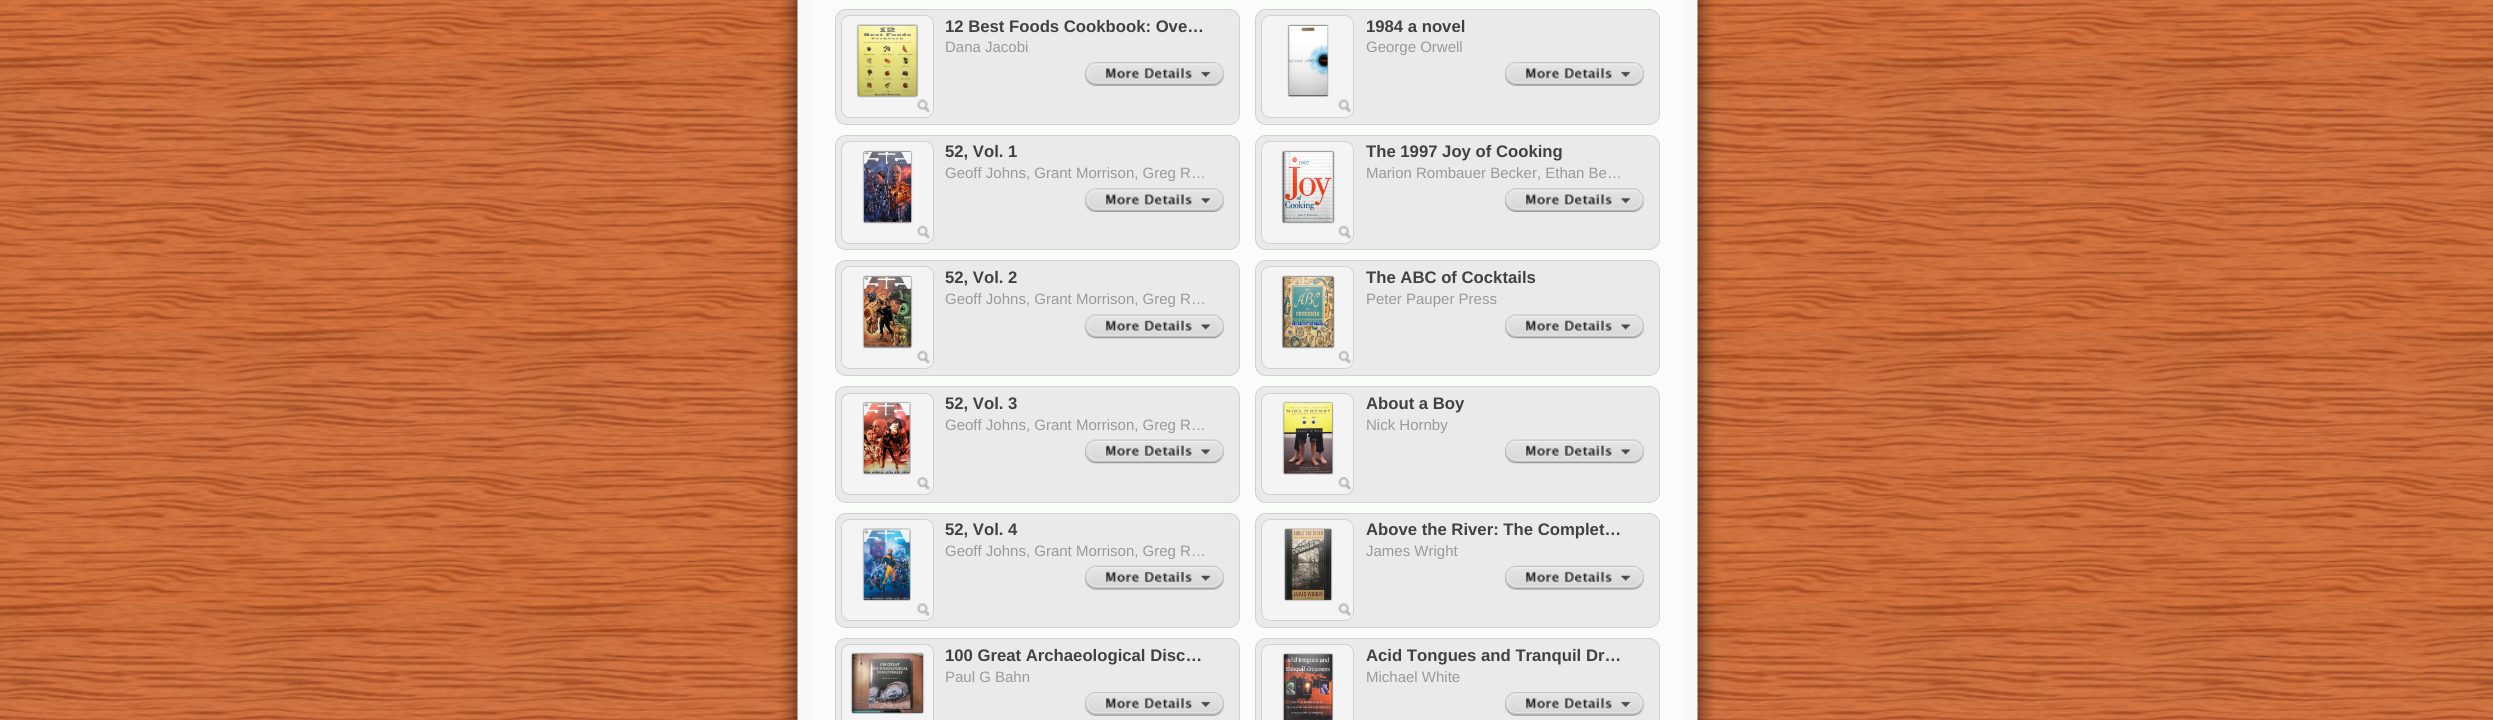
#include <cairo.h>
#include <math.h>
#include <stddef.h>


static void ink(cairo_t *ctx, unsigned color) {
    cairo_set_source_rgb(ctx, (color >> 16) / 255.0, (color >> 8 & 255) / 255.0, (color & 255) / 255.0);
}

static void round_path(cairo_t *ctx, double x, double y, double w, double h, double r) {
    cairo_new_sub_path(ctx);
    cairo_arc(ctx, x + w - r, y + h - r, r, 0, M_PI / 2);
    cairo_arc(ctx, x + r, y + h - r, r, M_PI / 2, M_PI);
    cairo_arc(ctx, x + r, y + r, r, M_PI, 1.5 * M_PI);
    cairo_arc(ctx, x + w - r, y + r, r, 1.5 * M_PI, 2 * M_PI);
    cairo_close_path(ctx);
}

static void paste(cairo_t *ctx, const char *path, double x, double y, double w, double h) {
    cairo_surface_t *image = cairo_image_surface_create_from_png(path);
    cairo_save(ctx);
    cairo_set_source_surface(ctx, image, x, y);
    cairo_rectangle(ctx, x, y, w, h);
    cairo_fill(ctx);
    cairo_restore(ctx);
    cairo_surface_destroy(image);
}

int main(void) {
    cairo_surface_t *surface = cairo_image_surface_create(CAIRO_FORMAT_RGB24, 2493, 720);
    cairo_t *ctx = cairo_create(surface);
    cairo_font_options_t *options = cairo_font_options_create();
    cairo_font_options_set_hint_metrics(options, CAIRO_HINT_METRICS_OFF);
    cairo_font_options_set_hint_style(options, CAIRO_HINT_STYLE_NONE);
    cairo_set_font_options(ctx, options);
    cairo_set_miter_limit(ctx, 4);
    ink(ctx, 0xFFFFFF);
    cairo_paint(ctx);
    paste(ctx, "media/1.png", 0, 0, 2493, 720);
    paste(ctx, "media/2.png", 780, 0, 935, 720);
    ink(ctx, 0xEAEAEA);
    round_path(ctx, 835.5, 9.5, 404, 115, 10.5);
    cairo_fill_preserve(ctx);
    ink(ctx, 0xD1D1D1);
    cairo_set_line_width(ctx, 1);
    cairo_stroke(ctx);
    ink(ctx, 0xF4F4F4);
    round_path(ctx, 841, 15, 93, 103, 9);
    cairo_fill(ctx);
    paste(ctx, "media/3.png", 917, 99, 13, 14);
    round_path(ctx, 841.5, 15.5, 92, 102, 8.5);
    ink(ctx, 0xD1D1D1);
    cairo_stroke(ctx);
    paste(ctx, "media/4.png", 856, 24, 63, 74);
    cairo_select_font_face(ctx, "Liberation Sans", CAIRO_FONT_SLANT_NORMAL, CAIRO_FONT_WEIGHT_BOLD);
    cairo_set_font_size(ctx, 16.7);
    ink(ctx, 0x414141);
    cairo_move_to(ctx, 945, 32);
    cairo_show_text(ctx, "12 Best Foods Cookbook: Ove…");
    cairo_select_font_face(ctx, "Liberation Sans", CAIRO_FONT_SLANT_NORMAL, CAIRO_FONT_WEIGHT_NORMAL);
    cairo_set_font_size(ctx, 15);
    ink(ctx, 0x999999);
    cairo_move_to(ctx, 945, 52);
    cairo_show_text(ctx, "Dana Jacobi");
    paste(ctx, "media/5.png", 1085, 62, 139, 24);
    ink(ctx, 0xEAEAEA);
    round_path(ctx, 835.5, 135.5, 404, 114, 10.5);
    cairo_fill_preserve(ctx);
    ink(ctx, 0xD1D1D1);
    cairo_stroke(ctx);
    ink(ctx, 0xF4F4F4);
    round_path(ctx, 841, 141, 93, 103, 9);
    cairo_fill(ctx);
    paste(ctx, "media/6.png", 917, 225, 13, 14);
    round_path(ctx, 841.5, 141.5, 92, 102, 8.5);
    ink(ctx, 0xD1D1D1);
    cairo_stroke(ctx);
    paste(ctx, "media/7.png", 862, 150, 51, 74);
    cairo_select_font_face(ctx, "Liberation Sans", CAIRO_FONT_SLANT_NORMAL, CAIRO_FONT_WEIGHT_BOLD);
    cairo_set_font_size(ctx, 16.7);
    ink(ctx, 0x414141);
    cairo_move_to(ctx, 945, 157);
    cairo_show_text(ctx, "52, Vol. 1");
    cairo_select_font_face(ctx, "Liberation Sans", CAIRO_FONT_SLANT_NORMAL, CAIRO_FONT_WEIGHT_NORMAL);
    cairo_set_font_size(ctx, 15);
    ink(ctx, 0x999999);
    cairo_move_to(ctx, 945, 178);
    cairo_show_text(ctx, "Geoff Johns, Grant Morrison, Greg R…");
    paste(ctx, "media/8.png", 1085, 188, 139, 24);
    ink(ctx, 0xEAEAEA);
    round_path(ctx, 835.5, 260.5, 404, 115, 10.5);
    cairo_fill_preserve(ctx);
    ink(ctx, 0xD1D1D1);
    cairo_stroke(ctx);
    ink(ctx, 0xF4F4F4);
    round_path(ctx, 841, 266, 93, 103, 9);
    cairo_fill(ctx);
    paste(ctx, "media/6.png", 917, 350, 13, 14);
    round_path(ctx, 841.5, 266.5, 92, 102, 8.5);
    ink(ctx, 0xD1D1D1);
    cairo_stroke(ctx);
    paste(ctx, "media/9.png", 862, 275, 51, 74);
    cairo_select_font_face(ctx, "Liberation Sans", CAIRO_FONT_SLANT_NORMAL, CAIRO_FONT_WEIGHT_BOLD);
    cairo_set_font_size(ctx, 16.7);
    ink(ctx, 0x414141);
    cairo_move_to(ctx, 945, 283);
    cairo_show_text(ctx, "52, Vol. 2");
    cairo_select_font_face(ctx, "Liberation Sans", CAIRO_FONT_SLANT_NORMAL, CAIRO_FONT_WEIGHT_NORMAL);
    cairo_set_font_size(ctx, 15);
    ink(ctx, 0x999999);
    cairo_move_to(ctx, 945, 304);
    cairo_show_text(ctx, "Geoff Johns, Grant Morrison, Greg R…");
    paste(ctx, "media/10.png", 1085, 314, 139, 25);
    ink(ctx, 0xEAEAEA);
    round_path(ctx, 835.5, 386.5, 404, 116, 10.5);
    cairo_fill_preserve(ctx);
    ink(ctx, 0xD1D1D1);
    cairo_stroke(ctx);
    ink(ctx, 0xF4F4F4);
    round_path(ctx, 841, 393, 93, 102, 9);
    cairo_fill(ctx);
    paste(ctx, "media/11.png", 917, 477, 13, 13);
    round_path(ctx, 841.5, 393.5, 92, 101, 8.5);
    ink(ctx, 0xD1D1D1);
    cairo_stroke(ctx);
    paste(ctx, "media/12.png", 862, 401, 49, 74);
    cairo_select_font_face(ctx, "Liberation Sans", CAIRO_FONT_SLANT_NORMAL, CAIRO_FONT_WEIGHT_BOLD);
    cairo_set_font_size(ctx, 16.7);
    ink(ctx, 0x414141);
    cairo_move_to(ctx, 945, 409);
    cairo_show_text(ctx, "52, Vol. 3");
    cairo_select_font_face(ctx, "Liberation Sans", CAIRO_FONT_SLANT_NORMAL, CAIRO_FONT_WEIGHT_NORMAL);
    cairo_set_font_size(ctx, 15);
    ink(ctx, 0x999999);
    cairo_move_to(ctx, 945, 430);
    cairo_show_text(ctx, "Geoff Johns, Grant Morrison, Greg R…");
    paste(ctx, "media/10.png", 1085, 439, 139, 25);
    ink(ctx, 0xEAEAEA);
    round_path(ctx, 835.5, 513.5, 404, 114, 10.5);
    cairo_fill_preserve(ctx);
    ink(ctx, 0xD1D1D1);
    cairo_stroke(ctx);
    ink(ctx, 0xF4F4F4);
    round_path(ctx, 841, 519, 93, 102, 9);
    cairo_fill(ctx);
    paste(ctx, "media/13.png", 917, 603, 13, 13);
    round_path(ctx, 841.5, 519.5, 92, 101, 8.5);
    ink(ctx, 0xD1D1D1);
    cairo_stroke(ctx);
    paste(ctx, "media/14.png", 862, 528, 49, 73);
    cairo_select_font_face(ctx, "Liberation Sans", CAIRO_FONT_SLANT_NORMAL, CAIRO_FONT_WEIGHT_BOLD);
    cairo_set_font_size(ctx, 16.7);
    ink(ctx, 0x414141);
    cairo_move_to(ctx, 945, 535);
    cairo_show_text(ctx, "52, Vol. 4");
    cairo_select_font_face(ctx, "Liberation Sans", CAIRO_FONT_SLANT_NORMAL, CAIRO_FONT_WEIGHT_NORMAL);
    cairo_set_font_size(ctx, 15);
    ink(ctx, 0x999999);
    cairo_move_to(ctx, 945, 556);
    cairo_show_text(ctx, "Geoff Johns, Grant Morrison, Greg R…");
    paste(ctx, "media/15.png", 1085, 565, 139, 25);
    ink(ctx, 0xEAEAEA);
    round_path(ctx, 835.5, 638.5, 404, 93, 10.5);
    cairo_fill_preserve(ctx);
    ink(ctx, 0xD1D1D1);
    cairo_stroke(ctx);
    ink(ctx, 0xF4F4F4);
    round_path(ctx, 841.5, 644.5, 92, 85, 8.5);
    cairo_fill_preserve(ctx);
    ink(ctx, 0xD1D1D1);
    cairo_stroke(ctx);
    paste(ctx, "media/16.png", 850, 652, 75, 62);
    cairo_select_font_face(ctx, "Liberation Sans", CAIRO_FONT_SLANT_NORMAL, CAIRO_FONT_WEIGHT_BOLD);
    cairo_set_font_size(ctx, 16.7);
    ink(ctx, 0x414141);
    cairo_move_to(ctx, 945, 661);
    cairo_show_text(ctx, "100 Great Archaeological Disc…");
    cairo_select_font_face(ctx, "Liberation Sans", CAIRO_FONT_SLANT_NORMAL, CAIRO_FONT_WEIGHT_NORMAL);
    cairo_set_font_size(ctx, 15);
    ink(ctx, 0x999999);
    cairo_move_to(ctx, 945, 682);
    cairo_show_text(ctx, "Paul G Bahn");
    paste(ctx, "media/17.png", 1085, 692, 139, 24);
    ink(ctx, 0xEAEAEA);
    round_path(ctx, 1255.5, 9.5, 404, 115, 10.5);
    cairo_fill_preserve(ctx);
    ink(ctx, 0xD1D1D1);
    cairo_stroke(ctx);
    ink(ctx, 0xF4F4F4);
    round_path(ctx, 1261, 15, 93, 103, 9);
    cairo_fill(ctx);
    paste(ctx, "media/18.png", 1338, 99, 14, 14);
    round_path(ctx, 1261.5, 15.5, 92, 102, 8.5);
    ink(ctx, 0xD1D1D1);
    cairo_stroke(ctx);
    paste(ctx, "media/19.png", 1287, 24, 42, 73);
    cairo_select_font_face(ctx, "Liberation Sans", CAIRO_FONT_SLANT_NORMAL, CAIRO_FONT_WEIGHT_BOLD);
    cairo_set_font_size(ctx, 16.7);
    ink(ctx, 0x414141);
    cairo_move_to(ctx, 1366, 32);
    cairo_show_text(ctx, "1984 a novel");
    cairo_select_font_face(ctx, "Liberation Sans", CAIRO_FONT_SLANT_NORMAL, CAIRO_FONT_WEIGHT_NORMAL);
    cairo_set_font_size(ctx, 15);
    ink(ctx, 0x999999);
    cairo_move_to(ctx, 1366, 52);
    cairo_show_text(ctx, "George Orwell");
    paste(ctx, "media/20.png", 1505, 62, 139, 24);
    ink(ctx, 0xEAEAEA);
    round_path(ctx, 1255.5, 135.5, 404, 114, 10.5);
    cairo_fill_preserve(ctx);
    ink(ctx, 0xD1D1D1);
    cairo_stroke(ctx);
    ink(ctx, 0xF4F4F4);
    round_path(ctx, 1261, 141, 93, 103, 9);
    cairo_fill(ctx);
    paste(ctx, "media/21.png", 1338, 225, 14, 14);
    round_path(ctx, 1261.5, 141.5, 92, 102, 8.5);
    ink(ctx, 0xD1D1D1);
    cairo_stroke(ctx);
    paste(ctx, "media/22.png", 1281, 150, 54, 74);
    cairo_select_font_face(ctx, "Liberation Sans", CAIRO_FONT_SLANT_NORMAL, CAIRO_FONT_WEIGHT_BOLD);
    cairo_set_font_size(ctx, 16.7);
    ink(ctx, 0x414141);
    cairo_move_to(ctx, 1366, 157);
    cairo_show_text(ctx, "The 1997 Joy of Cooking");
    cairo_select_font_face(ctx, "Liberation Sans", CAIRO_FONT_SLANT_NORMAL, CAIRO_FONT_WEIGHT_NORMAL);
    cairo_set_font_size(ctx, 15);
    ink(ctx, 0x999999);
    cairo_move_to(ctx, 1366, 178);
    cairo_show_text(ctx, "Marion Rombauer Becker, Ethan Be…");
    paste(ctx, "media/23.png", 1505, 188, 139, 24);
    ink(ctx, 0xEAEAEA);
    round_path(ctx, 1255.5, 260.5, 404, 115, 10.5);
    cairo_fill_preserve(ctx);
    ink(ctx, 0xD1D1D1);
    cairo_stroke(ctx);
    ink(ctx, 0xF4F4F4);
    round_path(ctx, 1261, 266, 93, 103, 9);
    cairo_fill(ctx);
    paste(ctx, "media/21.png", 1338, 350, 14, 14);
    round_path(ctx, 1261.5, 266.5, 92, 102, 8.5);
    ink(ctx, 0xD1D1D1);
    cairo_stroke(ctx);
    paste(ctx, "media/24.png", 1281, 275, 54, 74);
    cairo_select_font_face(ctx, "Liberation Sans", CAIRO_FONT_SLANT_NORMAL, CAIRO_FONT_WEIGHT_BOLD);
    cairo_set_font_size(ctx, 16.7);
    ink(ctx, 0x414141);
    cairo_move_to(ctx, 1366, 283);
    cairo_show_text(ctx, "The ABC of Cocktails");
    cairo_select_font_face(ctx, "Liberation Sans", CAIRO_FONT_SLANT_NORMAL, CAIRO_FONT_WEIGHT_NORMAL);
    cairo_set_font_size(ctx, 15);
    ink(ctx, 0x999999);
    cairo_move_to(ctx, 1366, 304);
    cairo_show_text(ctx, "Peter Pauper Press");
    paste(ctx, "media/25.png", 1505, 314, 139, 25);
    ink(ctx, 0xEAEAEA);
    round_path(ctx, 1255.5, 386.5, 404, 116, 10.5);
    cairo_fill_preserve(ctx);
    ink(ctx, 0xD1D1D1);
    cairo_stroke(ctx);
    ink(ctx, 0xF4F4F4);
    round_path(ctx, 1261, 393, 93, 102, 9);
    cairo_fill(ctx);
    paste(ctx, "media/26.png", 1338, 477, 14, 13);
    round_path(ctx, 1261.5, 393.5, 92, 101, 8.5);
    ink(ctx, 0xD1D1D1);
    cairo_stroke(ctx);
    paste(ctx, "media/27.png", 1282, 401, 52, 74);
    cairo_select_font_face(ctx, "Liberation Sans", CAIRO_FONT_SLANT_NORMAL, CAIRO_FONT_WEIGHT_BOLD);
    cairo_set_font_size(ctx, 16.7);
    ink(ctx, 0x414141);
    cairo_move_to(ctx, 1366, 409);
    cairo_show_text(ctx, "About a Boy");
    cairo_select_font_face(ctx, "Liberation Sans", CAIRO_FONT_SLANT_NORMAL, CAIRO_FONT_WEIGHT_NORMAL);
    cairo_set_font_size(ctx, 15);
    ink(ctx, 0x999999);
    cairo_move_to(ctx, 1366, 430);
    cairo_show_text(ctx, "Nick Hornby");
    paste(ctx, "media/25.png", 1505, 439, 139, 25);
    ink(ctx, 0xEAEAEA);
    round_path(ctx, 1255.5, 513.5, 404, 114, 10.5);
    cairo_fill_preserve(ctx);
    ink(ctx, 0xD1D1D1);
    cairo_stroke(ctx);
    ink(ctx, 0xF4F4F4);
    round_path(ctx, 1261, 519, 93, 102, 9);
    cairo_fill(ctx);
    paste(ctx, "media/28.png", 1338, 603, 14, 13);
    round_path(ctx, 1261.5, 519.5, 92, 101, 8.5);
    ink(ctx, 0xD1D1D1);
    cairo_stroke(ctx);
    paste(ctx, "media/29.png", 1284, 528, 49, 73);
    cairo_select_font_face(ctx, "Liberation Sans", CAIRO_FONT_SLANT_NORMAL, CAIRO_FONT_WEIGHT_BOLD);
    cairo_set_font_size(ctx, 16.7);
    ink(ctx, 0x414141);
    cairo_move_to(ctx, 1366, 535);
    cairo_show_text(ctx, "Above the River: The Complet…");
    cairo_select_font_face(ctx, "Liberation Sans", CAIRO_FONT_SLANT_NORMAL, CAIRO_FONT_WEIGHT_NORMAL);
    cairo_set_font_size(ctx, 15);
    ink(ctx, 0x999999);
    cairo_move_to(ctx, 1366, 556);
    cairo_show_text(ctx, "James Wright");
    paste(ctx, "media/30.png", 1505, 565, 139, 25);
    ink(ctx, 0xEAEAEA);
    round_path(ctx, 1255.5, 638.5, 404, 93, 10.5);
    cairo_fill_preserve(ctx);
    ink(ctx, 0xD1D1D1);
    cairo_stroke(ctx);
    ink(ctx, 0xF4F4F4);
    round_path(ctx, 1261.5, 644.5, 92, 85, 8.5);
    cairo_fill_preserve(ctx);
    ink(ctx, 0xD1D1D1);
    cairo_stroke(ctx);
    paste(ctx, "media/31.png", 1282, 653, 52, 67);
    cairo_select_font_face(ctx, "Liberation Sans", CAIRO_FONT_SLANT_NORMAL, CAIRO_FONT_WEIGHT_BOLD);
    cairo_set_font_size(ctx, 16.7);
    ink(ctx, 0x414141);
    cairo_move_to(ctx, 1366, 661);
    cairo_show_text(ctx, "Acid Tongues and Tranquil Dr…");
    cairo_select_font_face(ctx, "Liberation Sans", CAIRO_FONT_SLANT_NORMAL, CAIRO_FONT_WEIGHT_NORMAL);
    cairo_set_font_size(ctx, 15);
    ink(ctx, 0x999999);
    cairo_move_to(ctx, 1366, 682);
    cairo_show_text(ctx, "Michael White");
    paste(ctx, "media/32.png", 1505, 692, 139, 24);
    cairo_surface_write_to_png(surface, "image.png");
    cairo_font_options_destroy(options);
    cairo_destroy(ctx);
    cairo_surface_destroy(surface);
    return 0;
}
